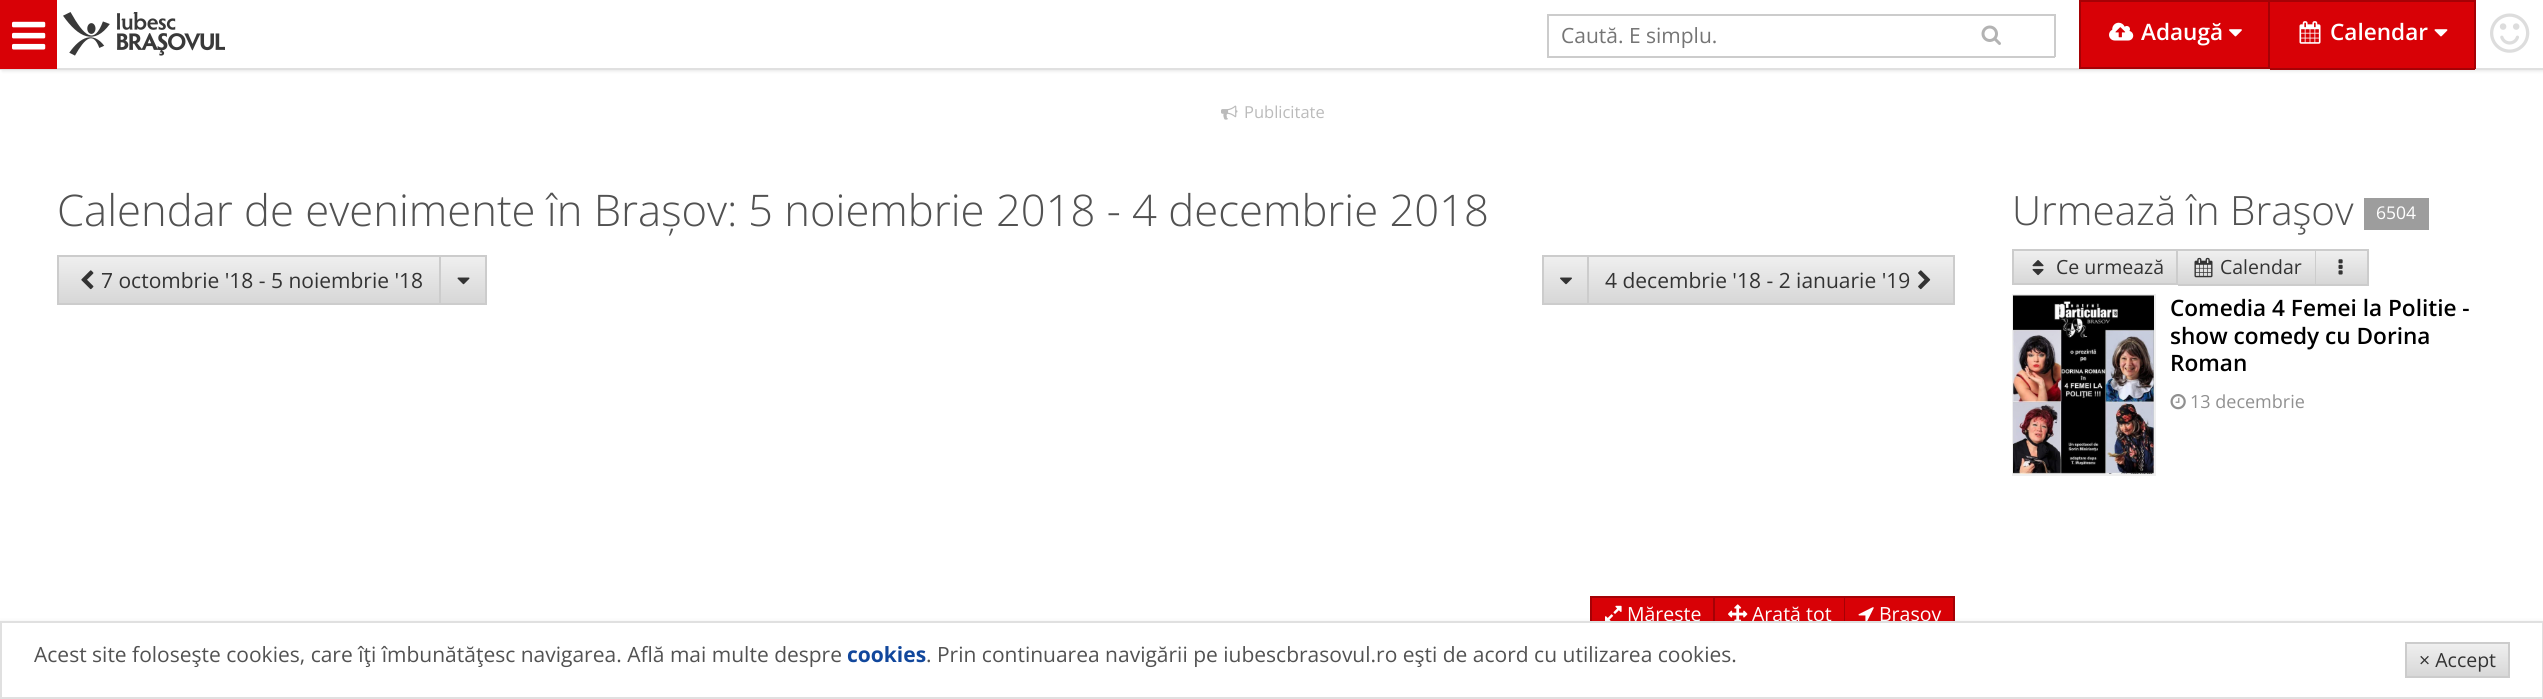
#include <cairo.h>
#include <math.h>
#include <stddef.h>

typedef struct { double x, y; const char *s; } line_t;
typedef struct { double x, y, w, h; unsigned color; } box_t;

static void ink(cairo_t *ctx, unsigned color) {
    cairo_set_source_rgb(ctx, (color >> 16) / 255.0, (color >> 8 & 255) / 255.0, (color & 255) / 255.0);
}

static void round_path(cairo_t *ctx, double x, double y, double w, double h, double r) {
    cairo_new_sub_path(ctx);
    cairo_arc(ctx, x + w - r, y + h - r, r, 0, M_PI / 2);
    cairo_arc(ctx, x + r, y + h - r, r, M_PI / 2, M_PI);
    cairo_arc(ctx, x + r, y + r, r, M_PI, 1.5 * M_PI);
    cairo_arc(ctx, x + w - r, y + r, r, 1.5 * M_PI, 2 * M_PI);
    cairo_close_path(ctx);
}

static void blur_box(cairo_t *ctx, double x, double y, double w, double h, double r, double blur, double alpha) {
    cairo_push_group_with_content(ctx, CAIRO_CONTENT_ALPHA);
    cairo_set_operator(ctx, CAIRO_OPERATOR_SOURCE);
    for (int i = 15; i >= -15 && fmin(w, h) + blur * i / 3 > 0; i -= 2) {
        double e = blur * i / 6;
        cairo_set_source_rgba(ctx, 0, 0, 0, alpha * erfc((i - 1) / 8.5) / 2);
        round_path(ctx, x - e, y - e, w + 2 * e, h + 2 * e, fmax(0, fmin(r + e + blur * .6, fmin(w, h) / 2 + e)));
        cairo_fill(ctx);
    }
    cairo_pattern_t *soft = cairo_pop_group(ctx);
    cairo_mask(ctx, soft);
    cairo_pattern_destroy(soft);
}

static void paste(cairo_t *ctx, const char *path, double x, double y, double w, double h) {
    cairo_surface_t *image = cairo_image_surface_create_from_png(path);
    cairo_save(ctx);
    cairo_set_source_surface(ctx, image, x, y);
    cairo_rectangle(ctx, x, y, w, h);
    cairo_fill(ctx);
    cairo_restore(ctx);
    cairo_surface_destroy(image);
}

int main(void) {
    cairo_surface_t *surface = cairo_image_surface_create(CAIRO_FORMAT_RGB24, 2543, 699);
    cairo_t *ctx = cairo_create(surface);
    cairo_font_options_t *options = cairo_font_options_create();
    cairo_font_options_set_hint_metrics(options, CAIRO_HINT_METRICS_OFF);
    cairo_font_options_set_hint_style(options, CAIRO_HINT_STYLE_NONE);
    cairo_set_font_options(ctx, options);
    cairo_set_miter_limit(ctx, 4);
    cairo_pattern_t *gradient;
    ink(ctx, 0xFFFFFF);
    cairo_paint(ctx);
    ink(ctx, 0x000000);
    blur_box(ctx, 2, 2, 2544, 69, 0, 1.5, 0.1);
    {
        static const box_t items[] = {
            {57, 0, 2486, 68, 0xFFFFFF},
            {0, 68, 2543, 2, 0xE0E0E0},
            {0, 0, 57, 69, 0xD80106},
        };
        for (size_t i = 0; i < sizeof items / sizeof *items; i++) {
            ink(ctx, items[i].color);
            cairo_rectangle(ctx, items[i].x, items[i].y, items[i].w, items[i].h);
            cairo_fill(ctx);
        }
    }
    paste(ctx, "media/1.png", 12, 21, 34, 29);
    paste(ctx, "media/2.png", 63, 12, 47, 44);
    paste(ctx, "media/3.png", 117, 12, 108, 44);
    {
        static const box_t items[] = {
            {1547, 14, 508, 2, 0xCCCCCC},
            {1547, 56, 381, 2, 0xCCCCCC},
            {1547, 14, 2, 43, 0xCCCCCC},
        };
        for (size_t i = 0; i < sizeof items / sizeof *items; i++) {
            ink(ctx, items[i].color);
            cairo_rectangle(ctx, items[i].x, items[i].y, items[i].w, items[i].h);
            cairo_fill(ctx);
        }
    }
    cairo_select_font_face(ctx, "Open Sans", CAIRO_FONT_SLANT_NORMAL, CAIRO_FONT_WEIGHT_NORMAL);
    cairo_set_font_size(ctx, 21);
    ink(ctx, 0x757575);
    cairo_move_to(ctx, 1561, 43);
    cairo_show_text(ctx, "Caută. E simplu.");
    ink(ctx, 0xCCCCCC);
    cairo_rectangle(ctx, 2054, 14, 2, 43);
    cairo_fill(ctx);
    cairo_rectangle(ctx, 1928, 56, 127, 2);
    cairo_fill(ctx);
    paste(ctx, "media/4.png", 1981, 25, 20, 20);
    ink(ctx, 0xD80106);
    cairo_rectangle(ctx, 2080, 1, 189, 67);
    cairo_fill_preserve(ctx);
    ink(ctx, 0xA50105);
    cairo_stroke(ctx);
    paste(ctx, "media/5.png", 2109, 22, 25, 19);
    cairo_select_font_face(ctx, "Open Sans SemiBold", CAIRO_FONT_SLANT_NORMAL, CAIRO_FONT_WEIGHT_NORMAL);
    cairo_set_font_size(ctx, 22.6);
    ink(ctx, 0xFFFFFF);
    cairo_move_to(ctx, 2141, 40);
    cairo_show_text(ctx, "Adaugă");
    paste(ctx, "media/6.png", 2229, 29, 13, 8);
    {
        static const box_t items[] = {
            {2270, 2, 204, 66, 0xD80106},
            {2270, 0, 205, 2, 0xA50105},
            {2474, 0, 2, 69, 0xA50105},
            {2270, 68, 205, 2, 0xA50105},
        };
        for (size_t i = 0; i < sizeof items / sizeof *items; i++) {
            ink(ctx, items[i].color);
            cairo_rectangle(ctx, items[i].x, items[i].y, items[i].w, items[i].h);
            cairo_fill(ctx);
        }
    }
    paste(ctx, "media/7.png", 2299, 21, 22, 23);
    ink(ctx, 0xFFFFFF);
    cairo_move_to(ctx, 2330, 40);
    cairo_show_text(ctx, "Calendar");
    paste(ctx, "media/8.png", 2434, 29, 14, 8);
    paste(ctx, "media/9.png", 2490, 13, 40, 40);
    paste(ctx, "media/10.png", 1221, 105, 17, 15);
    cairo_select_font_face(ctx, "Open Sans", CAIRO_FONT_SLANT_NORMAL, CAIRO_FONT_WEIGHT_NORMAL);
    cairo_set_font_size(ctx, 16.5);
    ink(ctx, 0xBBBBBB);
    cairo_move_to(ctx, 1244, 118);
    cairo_show_text(ctx, "Publicitate");
    cairo_select_font_face(ctx, "Open Sans Light", CAIRO_FONT_SLANT_NORMAL, CAIRO_FONT_WEIGHT_NORMAL);
    cairo_set_font_size(ctx, 43.6);
    ink(ctx, 0x525252);
    cairo_move_to(ctx, 57, 226);
    cairo_show_text(ctx, "Calendar de evenimente în Brașov:");
    cairo_move_to(ctx, 748, 226);
    cairo_show_text(ctx, "5 noiembrie 2018 - 4 decembrie 2018");
    gradient = cairo_pattern_create_linear(249, 256, 249, 303);
    cairo_pattern_add_color_stop_rgba(gradient, 0, 0.937, 0.937, 0.937, 1);
    cairo_pattern_add_color_stop_rgba(gradient, 1, 0.843, 0.843, 0.843, 1);
    cairo_set_source(ctx, gradient);
    cairo_pattern_destroy(gradient);
    cairo_rectangle(ctx, 59, 257, 380, 46);
    cairo_fill(ctx);
    cairo_rectangle(ctx, 58, 256, 382, 48);
    ink(ctx, 0xCCCCCC);
    cairo_stroke(ctx);
    paste(ctx, "media/11.png", 81, 270, 13, 20);
    cairo_select_font_face(ctx, "Open Sans", CAIRO_FONT_SLANT_NORMAL, CAIRO_FONT_WEIGHT_NORMAL);
    cairo_set_font_size(ctx, 21);
    ink(ctx, 0x333333);
    cairo_move_to(ctx, 101, 288);
    cairo_show_text(ctx, "7 octombrie '18 - 5 noiembrie '18");
    gradient = cairo_pattern_create_linear(463, 257, 463, 303);
    cairo_pattern_add_color_stop_rgba(gradient, 0, 0.937, 0.937, 0.937, 1);
    cairo_pattern_add_color_stop_rgba(gradient, 1, 0.843, 0.843, 0.843, 1);
    cairo_set_source(ctx, gradient);
    cairo_pattern_destroy(gradient);
    cairo_rectangle(ctx, 441, 257, 44, 46);
    cairo_fill(ctx);
    {
        static const box_t items[] = {
            {441, 255, 45, 2, 0xCCCCCC},
            {485, 255, 2, 50, 0xCCCCCC},
            {441, 303, 45, 2, 0xCCCCCC},
        };
        for (size_t i = 0; i < sizeof items / sizeof *items; i++) {
            ink(ctx, items[i].color);
            cairo_rectangle(ctx, items[i].x, items[i].y, items[i].w, items[i].h);
            cairo_fill(ctx);
        }
    }
    paste(ctx, "media/12.png", 457, 277, 13, 8);
    gradient = cairo_pattern_create_linear(1565, 257, 1565, 303);
    cairo_pattern_add_color_stop_rgba(gradient, 0, 0.937, 0.937, 0.937, 1);
    cairo_pattern_add_color_stop_rgba(gradient, 1, 0.843, 0.843, 0.843, 1);
    cairo_set_source(ctx, gradient);
    cairo_pattern_destroy(gradient);
    cairo_rectangle(ctx, 1544, 257, 43, 46);
    cairo_fill(ctx);
    cairo_rectangle(ctx, 1543, 256, 45, 48);
    ink(ctx, 0xCCCCCC);
    cairo_stroke(ctx);
    paste(ctx, "media/13.png", 1560, 277, 12, 8);
    gradient = cairo_pattern_create_linear(1771, 257, 1771, 303);
    cairo_pattern_add_color_stop_rgba(gradient, 0, 0.937, 0.937, 0.937, 1);
    cairo_pattern_add_color_stop_rgba(gradient, 1, 0.843, 0.843, 0.843, 1);
    cairo_set_source(ctx, gradient);
    cairo_pattern_destroy(gradient);
    cairo_rectangle(ctx, 1589, 257, 364, 46);
    cairo_fill(ctx);
    {
        static const box_t items[] = {
            {1589, 255, 366, 2, 0xCCCCCC},
            {1953, 255, 2, 50, 0xCCCCCC},
            {1589, 303, 366, 2, 0xCCCCCC},
        };
        for (size_t i = 0; i < sizeof items / sizeof *items; i++) {
            ink(ctx, items[i].color);
            cairo_rectangle(ctx, items[i].x, items[i].y, items[i].w, items[i].h);
            cairo_fill(ctx);
        }
    }
    ink(ctx, 0x333333);
    cairo_move_to(ctx, 1605, 288);
    cairo_show_text(ctx, "4 decembrie '18 - 2 ianuarie '19");
    paste(ctx, "media/14.png", 1918, 270, 13, 20);
    ink(ctx, 0xD80106);
    cairo_rectangle(ctx, 1592, 598, 121, 23);
    cairo_fill(ctx);
    cairo_rectangle(ctx, 1591, 597, 123, 34);
    ink(ctx, 0xA50105);
    cairo_stroke(ctx);
    paste(ctx, "media/15.png", 1605, 605, 17, 16);
    cairo_set_font_size(ctx, 19.5);
    ink(ctx, 0xFFFFFF);
    cairo_move_to(ctx, 1627, 621);
    cairo_show_text(ctx, "Mărește");
    {
        static const box_t items[] = {
            {1715, 598, 129, 23, 0xD80106},
            {1715, 596, 240, 2, 0xA50105},
            {1844, 596, 1, 25, 0xA50105},
        };
        for (size_t i = 0; i < sizeof items / sizeof *items; i++) {
            ink(ctx, items[i].color);
            cairo_rectangle(ctx, items[i].x, items[i].y, items[i].w, items[i].h);
            cairo_fill(ctx);
        }
    }
    paste(ctx, "media/16.png", 1728, 604, 20, 17);
    ink(ctx, 0xFFFFFF);
    cairo_move_to(ctx, 1752, 621);
    cairo_show_text(ctx, "Arată tot");
    ink(ctx, 0xD80106);
    cairo_rectangle(ctx, 1845, 598, 108, 23);
    cairo_fill(ctx);
    ink(ctx, 0xA50105);
    cairo_rectangle(ctx, 1953, 596, 2, 25);
    cairo_fill(ctx);
    paste(ctx, "media/17.png", 1858, 607, 16, 14);
    ink(ctx, 0xFFFFFF);
    cairo_move_to(ctx, 1879, 621);
    cairo_show_text(ctx, "Brașov");
    cairo_select_font_face(ctx, "Open Sans Light", CAIRO_FONT_SLANT_NORMAL, CAIRO_FONT_WEIGHT_NORMAL);
    cairo_set_font_size(ctx, 40.4);
    ink(ctx, 0x525252);
    cairo_move_to(ctx, 2012, 225);
    cairo_show_text(ctx, "Urmează în Braşov");
    ink(ctx, 0x9D9D9D);
    cairo_rectangle(ctx, 2364, 198, 65, 32);
    cairo_fill(ctx);
    cairo_select_font_face(ctx, "Open Sans", CAIRO_FONT_SLANT_NORMAL, CAIRO_FONT_WEIGHT_NORMAL);
    cairo_set_font_size(ctx, 17.5);
    ink(ctx, 0xFFFFFF);
    cairo_move_to(ctx, 2376, 219);
    cairo_show_text(ctx, "6504");
    gradient = cairo_pattern_create_linear(2095, 251, 2095, 284);
    cairo_pattern_add_color_stop_rgba(gradient, 0, 0.937, 0.937, 0.937, 1);
    cairo_pattern_add_color_stop_rgba(gradient, 1, 0.843, 0.843, 0.843, 1);
    cairo_set_source(ctx, gradient);
    cairo_pattern_destroy(gradient);
    cairo_rectangle(ctx, 2014, 251, 162, 32);
    cairo_fill(ctx);
    cairo_rectangle(ctx, 2013, 250, 164, 34);
    ink(ctx, 0xCCCCCC);
    cairo_stroke(ctx);
    paste(ctx, "media/18.png", 2032, 260, 12, 16);
    cairo_set_font_size(ctx, 19.5);
    ink(ctx, 0x333333);
    cairo_move_to(ctx, 2056, 274);
    cairo_show_text(ctx, "Ce urmează");
    gradient = cairo_pattern_create_linear(2246, 251, 2246, 284);
    cairo_pattern_add_color_stop_rgba(gradient, 0, 0.937, 0.937, 0.937, 1);
    cairo_pattern_add_color_stop_rgba(gradient, 1, 0.843, 0.843, 0.843, 1);
    cairo_set_source(ctx, gradient);
    cairo_pattern_destroy(gradient);
    cairo_rectangle(ctx, 2178, 251, 137, 33);
    cairo_fill(ctx);
    {
        static const box_t items[] = {
            {2178, 249, 191, 2, 0xCCCCCC},
            {2315, 249, 1, 36, 0xCCCCCC},
            {2178, 284, 138, 2, 0xCCCCCC},
        };
        for (size_t i = 0; i < sizeof items / sizeof *items; i++) {
            ink(ctx, items[i].color);
            cairo_rectangle(ctx, items[i].x, items[i].y, items[i].w, items[i].h);
            cairo_fill(ctx);
        }
    }
    paste(ctx, "media/19.png", 2194, 257, 19, 21);
    ink(ctx, 0x333333);
    cairo_move_to(ctx, 2220, 274);
    cairo_show_text(ctx, "Calendar");
    gradient = cairo_pattern_create_linear(2342, 251, 2342, 284);
    cairo_pattern_add_color_stop_rgba(gradient, 0, 0.937, 0.937, 0.937, 1);
    cairo_pattern_add_color_stop_rgba(gradient, 1, 0.843, 0.843, 0.843, 1);
    cairo_set_source(ctx, gradient);
    cairo_pattern_destroy(gradient);
    cairo_rectangle(ctx, 2316, 251, 51, 33);
    cairo_fill(ctx);
    ink(ctx, 0xCCCCCC);
    cairo_rectangle(ctx, 2367, 249, 2, 36);
    cairo_fill(ctx);
    cairo_rectangle(ctx, 2316, 284, 53, 2);
    cairo_fill(ctx);
    paste(ctx, "media/20.png", 2338, 259, 5, 16);
    cairo_rectangle(ctx, 2013, 295, 142, 180);
    ink(ctx, 0xEFEFEF);
    cairo_stroke(ctx);
    paste(ctx, "media/21.png", 2013, 295, 141, 179);
    cairo_select_font_face(ctx, "Open Sans SemiBold", CAIRO_FONT_SLANT_NORMAL, CAIRO_FONT_WEIGHT_NORMAL);
    cairo_set_font_size(ctx, 22.6);
    ink(ctx, 0x000000);
    {
        static const line_t items[] = {
            {2170, 316, "Comedia 4 Femei la Politie -"},
            {2170, 344, "show comedy cu Dorina"},
            {2170, 371, "Roman"},
        };
        for (size_t i = 0; i < sizeof items / sizeof *items; i++) {
            cairo_move_to(ctx, items[i].x, items[i].y);
            cairo_show_text(ctx, items[i].s);
        }
    }
    paste(ctx, "media/22.png", 2170, 394, 16, 16);
    cairo_select_font_face(ctx, "Open Sans", CAIRO_FONT_SLANT_NORMAL, CAIRO_FONT_WEIGHT_NORMAL);
    cairo_set_font_size(ctx, 18);
    ink(ctx, 0x909090);
    cairo_move_to(ctx, 2190, 408);
    cairo_show_text(ctx, "13 decembrie");
    ink(ctx, 0x000000);
    blur_box(ctx, 0, 624, 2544, 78, 0, 3, 0.2);
    ink(ctx, 0xFFFFFF);
    cairo_rectangle(ctx, 1, 622, 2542, 76);
    cairo_fill_preserve(ctx);
    ink(ctx, 0xE0E0E0);
    cairo_stroke(ctx);
    cairo_set_font_size(ctx, 21);
    ink(ctx, 0x525252);
    cairo_move_to(ctx, 34, 662);
    cairo_show_text(ctx, "Acest site foloseşte cookies, care îţi îmbunătăţesc navigarea. Află mai multe despre");
    cairo_select_font_face(ctx, "Open Sans", CAIRO_FONT_SLANT_NORMAL, CAIRO_FONT_WEIGHT_BOLD);
    ink(ctx, 0x11479C);
    cairo_move_to(ctx, 847, 662);
    cairo_show_text(ctx, "cookies");
    cairo_select_font_face(ctx, "Open Sans", CAIRO_FONT_SLANT_NORMAL, CAIRO_FONT_WEIGHT_NORMAL);
    ink(ctx, 0x525252);
    cairo_move_to(ctx, 926, 662);
    cairo_show_text(ctx, ". Prin continuarea navigării pe iubescbrasovul.ro eşti de acord cu utilizarea cookies.");
    gradient = cairo_pattern_create_linear(2457, 644, 2457, 677);
    cairo_pattern_add_color_stop_rgba(gradient, 0, 0.937, 0.937, 0.937, 1);
    cairo_pattern_add_color_stop_rgba(gradient, 1, 0.843, 0.843, 0.843, 1);
    cairo_set_source(ctx, gradient);
    cairo_pattern_destroy(gradient);
    cairo_rectangle(ctx, 2407, 644, 101, 32);
    cairo_fill(ctx);
    cairo_rectangle(ctx, 2406, 643, 103, 34);
    ink(ctx, 0xCCCCCC);
    cairo_stroke(ctx);
    cairo_set_font_size(ctx, 19.5);
    ink(ctx, 0x333333);
    cairo_move_to(ctx, 2419, 667);
    cairo_show_text(ctx, "× Accept");
    cairo_surface_write_to_png(surface, "image.png");
    cairo_font_options_destroy(options);
    cairo_destroy(ctx);
    cairo_surface_destroy(surface);
    return 0;
}
